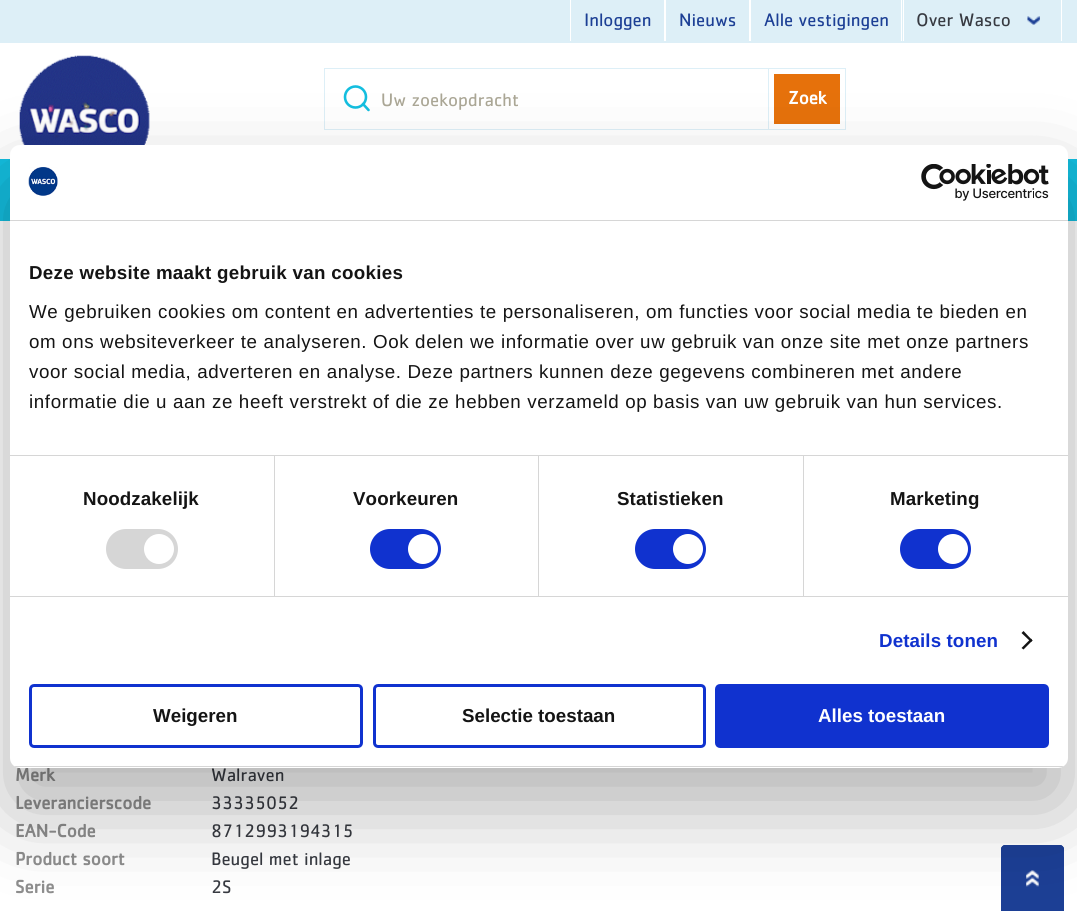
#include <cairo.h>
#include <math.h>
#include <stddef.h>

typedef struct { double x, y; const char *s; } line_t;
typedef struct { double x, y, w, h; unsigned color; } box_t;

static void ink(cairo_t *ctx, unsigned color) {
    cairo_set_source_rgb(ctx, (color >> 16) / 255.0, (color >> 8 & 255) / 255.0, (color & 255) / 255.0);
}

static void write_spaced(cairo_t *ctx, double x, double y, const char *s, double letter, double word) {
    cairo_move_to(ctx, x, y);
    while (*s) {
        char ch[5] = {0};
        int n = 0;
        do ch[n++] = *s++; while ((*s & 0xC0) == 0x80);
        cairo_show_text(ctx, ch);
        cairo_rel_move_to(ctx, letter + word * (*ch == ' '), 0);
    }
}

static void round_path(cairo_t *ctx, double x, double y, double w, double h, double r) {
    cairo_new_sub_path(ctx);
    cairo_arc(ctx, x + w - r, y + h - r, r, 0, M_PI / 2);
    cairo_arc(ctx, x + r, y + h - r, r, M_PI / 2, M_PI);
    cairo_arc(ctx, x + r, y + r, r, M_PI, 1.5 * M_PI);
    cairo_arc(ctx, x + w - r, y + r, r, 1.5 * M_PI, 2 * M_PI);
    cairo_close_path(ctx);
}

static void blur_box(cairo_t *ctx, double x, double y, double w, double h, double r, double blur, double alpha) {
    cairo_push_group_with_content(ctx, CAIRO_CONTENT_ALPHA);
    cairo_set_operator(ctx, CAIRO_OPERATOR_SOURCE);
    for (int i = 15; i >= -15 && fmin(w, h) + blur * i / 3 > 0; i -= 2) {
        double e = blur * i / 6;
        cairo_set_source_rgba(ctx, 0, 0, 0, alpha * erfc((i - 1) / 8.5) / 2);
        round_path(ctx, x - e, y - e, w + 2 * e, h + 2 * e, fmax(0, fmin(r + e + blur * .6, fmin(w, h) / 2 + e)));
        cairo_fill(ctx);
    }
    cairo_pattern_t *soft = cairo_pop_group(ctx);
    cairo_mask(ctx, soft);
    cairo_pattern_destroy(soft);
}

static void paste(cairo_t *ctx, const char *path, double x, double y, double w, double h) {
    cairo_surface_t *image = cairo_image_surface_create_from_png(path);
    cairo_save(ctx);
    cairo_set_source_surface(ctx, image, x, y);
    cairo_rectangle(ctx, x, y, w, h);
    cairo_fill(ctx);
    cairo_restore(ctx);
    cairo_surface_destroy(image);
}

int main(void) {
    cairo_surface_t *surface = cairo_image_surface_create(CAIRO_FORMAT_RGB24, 1077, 911);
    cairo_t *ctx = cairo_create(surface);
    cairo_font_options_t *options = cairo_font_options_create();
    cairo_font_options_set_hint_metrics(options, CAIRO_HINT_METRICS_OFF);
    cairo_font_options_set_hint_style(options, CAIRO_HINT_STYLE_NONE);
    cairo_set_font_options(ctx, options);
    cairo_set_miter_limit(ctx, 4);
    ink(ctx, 0xFFFFFF);
    cairo_paint(ctx);
    {
        static const box_t items[] = {
            {0, 0, 1077, 43, 0xDDEFF7},
            {664, 0, 2, 41, 0xFFFFFF},
            {570, 0, 1, 41, 0xFFFFFF},
        };
        for (size_t i = 0; i < sizeof items / sizeof *items; i++) {
            ink(ctx, items[i].color);
            cairo_rectangle(ctx, items[i].x, items[i].y, items[i].w, items[i].h);
            cairo_fill(ctx);
        }
    }
    cairo_select_font_face(ctx, "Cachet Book", CAIRO_FONT_SLANT_NORMAL, CAIRO_FONT_WEIGHT_NORMAL);
    cairo_set_font_size(ctx, 18.75);
    ink(ctx, 0x1C3F95);
    cairo_move_to(ctx, 584, 26);
    cairo_show_text(ctx, "Inloggen");
    ink(ctx, 0xFFFFFF);
    cairo_rectangle(ctx, 749, 0, 2, 41);
    cairo_fill(ctx);
    ink(ctx, 0x1C3F95);
    cairo_move_to(ctx, 679, 26);
    cairo_show_text(ctx, "Nieuws");
    ink(ctx, 0xFFFFFF);
    cairo_rectangle(ctx, 901, 0, 1, 41);
    cairo_fill(ctx);
    ink(ctx, 0x1C3F95);
    cairo_move_to(ctx, 764, 26);
    cairo_show_text(ctx, "Alle vestigingen");
    ink(ctx, 0xFFFFFF);
    cairo_rectangle(ctx, 1061, 0, 1, 41);
    cairo_fill(ctx);
    cairo_rectangle(ctx, 903, 0, 1, 41);
    cairo_fill(ctx);
    ink(ctx, 0x373A41);
    cairo_move_to(ctx, 916, 26);
    cairo_show_text(ctx, "Over Wasco");
    paste(ctx, "media/1.png", 1027, 16, 13, 9);
    paste(ctx, "media/2.png", 19, 55, 131, 90);
    cairo_rectangle(ctx, 324.5, 68.5, 445, 61);
    ink(ctx, 0xDDEFF7);
    cairo_set_line_width(ctx, 1);
    cairo_stroke(ctx);
    cairo_arc(ctx, 355.5, 97, 10.5, 0, 2 * M_PI);
    ink(ctx, 0x13BEDF);
    cairo_set_line_width(ctx, 2.6);
    cairo_stroke(ctx);
    cairo_new_path(ctx);
    cairo_move_to(ctx, 368.5, 110);
    cairo_line_to(ctx, 363, 104);
    cairo_set_line_cap(ctx, CAIRO_LINE_CAP_ROUND);
    cairo_set_line_join(ctx, CAIRO_LINE_JOIN_ROUND);
    cairo_stroke(ctx);
    ink(ctx, 0xABA796);
    cairo_move_to(ctx, 381, 106);
    cairo_show_text(ctx, "Uw zoekopdracht");
    ink(ctx, 0xE6710B);
    cairo_rectangle(ctx, 771.5, 71.5, 71, 55);
    cairo_fill_preserve(ctx);
    ink(ctx, 0xFFFFFF);
    cairo_set_line_width(ctx, 5);
    cairo_set_line_cap(ctx, CAIRO_LINE_CAP_BUTT);
    cairo_set_line_join(ctx, CAIRO_LINE_JOIN_MITER);
    cairo_stroke(ctx);
    cairo_rectangle(ctx, 768.5, 68.5, 77, 61);
    ink(ctx, 0xDDEFF7);
    cairo_set_line_width(ctx, 1);
    cairo_stroke(ctx);
    cairo_select_font_face(ctx, "Cachet Book", CAIRO_FONT_SLANT_NORMAL, CAIRO_FONT_WEIGHT_BOLD);
    ink(ctx, 0xFFFFFF);
    cairo_move_to(ctx, 788, 104);
    cairo_show_text(ctx, "Zoek");
    ink(ctx, 0x13BEDF);
    cairo_rectangle(ctx, 0, 159, 10, 62);
    cairo_fill(ctx);
    cairo_rectangle(ctx, 1068, 159, 9, 62);
    cairo_fill(ctx);
    ink(ctx, 0x8E8E8E);
    cairo_move_to(ctx, 15, 781);
    cairo_show_text(ctx, "Merk");
    cairo_select_font_face(ctx, "Cachet Book", CAIRO_FONT_SLANT_NORMAL, CAIRO_FONT_WEIGHT_NORMAL);
    ink(ctx, 0x373A41);
    cairo_move_to(ctx, 211, 781);
    cairo_show_text(ctx, "Walraven");
    cairo_select_font_face(ctx, "Cachet Book", CAIRO_FONT_SLANT_NORMAL, CAIRO_FONT_WEIGHT_BOLD);
    ink(ctx, 0x8E8E8E);
    cairo_move_to(ctx, 15, 809);
    cairo_show_text(ctx, "Leverancierscode");
    cairo_select_font_face(ctx, "Cachet Book", CAIRO_FONT_SLANT_NORMAL, CAIRO_FONT_WEIGHT_NORMAL);
    ink(ctx, 0x373A41);
    cairo_move_to(ctx, 211, 809);
    cairo_show_text(ctx, "33335052");
    cairo_select_font_face(ctx, "Cachet Book", CAIRO_FONT_SLANT_NORMAL, CAIRO_FONT_WEIGHT_BOLD);
    ink(ctx, 0x8E8E8E);
    cairo_move_to(ctx, 15, 837);
    cairo_show_text(ctx, "EAN-Code");
    cairo_select_font_face(ctx, "Cachet Book", CAIRO_FONT_SLANT_NORMAL, CAIRO_FONT_WEIGHT_NORMAL);
    ink(ctx, 0x373A41);
    cairo_move_to(ctx, 211, 837);
    cairo_show_text(ctx, "8712993194315");
    cairo_select_font_face(ctx, "Cachet Book", CAIRO_FONT_SLANT_NORMAL, CAIRO_FONT_WEIGHT_BOLD);
    ink(ctx, 0x8E8E8E);
    cairo_move_to(ctx, 15, 865);
    cairo_show_text(ctx, "Product soort");
    cairo_select_font_face(ctx, "Cachet Book", CAIRO_FONT_SLANT_NORMAL, CAIRO_FONT_WEIGHT_NORMAL);
    ink(ctx, 0x373A41);
    cairo_move_to(ctx, 211, 865);
    cairo_show_text(ctx, "Beugel met inlage");
    cairo_select_font_face(ctx, "Cachet Book", CAIRO_FONT_SLANT_NORMAL, CAIRO_FONT_WEIGHT_BOLD);
    ink(ctx, 0x8E8E8E);
    cairo_move_to(ctx, 15, 893);
    cairo_show_text(ctx, "Serie");
    cairo_select_font_face(ctx, "Cachet Book", CAIRO_FONT_SLANT_NORMAL, CAIRO_FONT_WEIGHT_NORMAL);
    ink(ctx, 0x373A41);
    cairo_move_to(ctx, 211, 893);
    cairo_show_text(ctx, "2S");
    ink(ctx, 0x1C3F95);
    cairo_new_path(ctx);
    cairo_move_to(ctx, 1005, 845);
    cairo_line_to(ctx, 1060, 845);
    cairo_curve_to(ctx, 1062, 845, 1064, 847, 1064, 849);
    cairo_line_to(ctx, 1064, 911);
    cairo_line_to(ctx, 1001, 911);
    cairo_line_to(ctx, 1001, 849);
    cairo_curve_to(ctx, 1001, 847, 1003, 845, 1005, 845);
    cairo_close_path(ctx);
    cairo_fill(ctx);
    paste(ctx, "media/3.png", 1026, 870, 13, 17);
    cairo_set_fill_rule(ctx, CAIRO_FILL_RULE_EVEN_ODD);
    cairo_new_path(ctx);
    cairo_move_to(ctx, 1005, 845);
    cairo_line_to(ctx, 1060, 845);
    cairo_curve_to(ctx, 1062, 845, 1064, 847, 1064, 849);
    cairo_line_to(ctx, 1064, 911);
    cairo_line_to(ctx, 1001, 911);
    cairo_line_to(ctx, 1001, 849);
    cairo_curve_to(ctx, 1001, 847, 1003, 845, 1005, 845);
    cairo_close_path(ctx);
    cairo_move_to(ctx, 1026, 870);
    cairo_line_to(ctx, 1039, 870);
    cairo_line_to(ctx, 1039, 911);
    cairo_line_to(ctx, 1026, 911);
    cairo_close_path(ctx);
    cairo_fill(ctx);
    ink(ctx, 0x000000);
    blur_box(ctx, 10, 185, 1058, 623, 10, 42.5, 0.3);
    ink(ctx, 0xFFFFFF);
    round_path(ctx, 10, 145, 1058, 623, 10);
    cairo_fill(ctx);
    ink(ctx, 0xD6D6D6);
    cairo_rectangle(ctx, 10, 220, 1058, 1);
    cairo_fill(ctx);
    paste(ctx, "media/4.png", 28, 167, 30, 29);
    paste(ctx, "media/5.png", 921, 164, 128, 37);
    cairo_rectangle(ctx, 10, 455, 1058, 1);
    cairo_fill(ctx);
    cairo_select_font_face(ctx, "Liberation Sans", CAIRO_FONT_SLANT_NORMAL, CAIRO_FONT_WEIGHT_BOLD);
    ink(ctx, 0x141414);
    write_spaced(ctx, 29, 279, "Deze website maakt gebruik van cookies", 0.3, 0);
    cairo_select_font_face(ctx, "Liberation Sans", CAIRO_FONT_SLANT_NORMAL, CAIRO_FONT_WEIGHT_NORMAL);
    {
        static const line_t items[] = {
            {29, 318, "We gebruiken cookies om content en advertenties te personaliseren, om functies voor social media te bieden en"},
            {29, 348, "om ons websiteverkeer te analyseren. Ook delen we informatie over uw gebruik van onze site met onze partners"},
            {29, 378, "voor social media, adverteren en analyse. Deze partners kunnen deze gegevens combineren met andere"},
            {29, 408, "informatie die u aan ze heeft verstrekt of die ze hebben verzameld op basis van uw gebruik van hun services."},
        };
        for (size_t i = 0; i < sizeof items / sizeof *items; i++) {
            write_spaced(ctx, items[i].x, items[i].y, items[i].s, 0.62, 0);
        }
    }
    ink(ctx, 0xD6D6D6);
    cairo_rectangle(ctx, 10, 596, 1058, 1);
    cairo_fill(ctx);
    cairo_rectangle(ctx, 274, 456, 1, 140);
    cairo_fill(ctx);
    cairo_select_font_face(ctx, "Liberation Sans", CAIRO_FONT_SLANT_NORMAL, CAIRO_FONT_WEIGHT_BOLD);
    ink(ctx, 0x141414);
    write_spaced(ctx, 83, 505, "Noodzakelijk", 0.1, 0);
    ink(ctx, 0xD6D6D6);
    round_path(ctx, 106, 529, 72, 40, 20);
    cairo_fill(ctx);
    ink(ctx, 0xFFFFFF);
    cairo_arc(ctx, 159, 549, 15, 0, 2 * M_PI);
    cairo_fill(ctx);
    ink(ctx, 0xD6D6D6);
    cairo_rectangle(ctx, 538, 456, 1, 140);
    cairo_fill(ctx);
    ink(ctx, 0x141414);
    write_spaced(ctx, 353, 505, "Voorkeuren", 0.1, 0);
    ink(ctx, 0x1032CF);
    round_path(ctx, 370, 529, 71, 40, 20);
    cairo_fill(ctx);
    ink(ctx, 0xFFFFFF);
    cairo_arc(ctx, 423, 549, 15, 0, 2 * M_PI);
    cairo_fill(ctx);
    ink(ctx, 0xD6D6D6);
    cairo_rectangle(ctx, 803, 456, 1, 140);
    cairo_fill(ctx);
    ink(ctx, 0x141414);
    write_spaced(ctx, 617, 505, "Statistieken", 0.1, 0);
    ink(ctx, 0x1032CF);
    round_path(ctx, 635, 529, 71, 40, 20);
    cairo_fill(ctx);
    ink(ctx, 0xFFFFFF);
    cairo_arc(ctx, 688, 549, 15, 0, 2 * M_PI);
    cairo_fill(ctx);
    ink(ctx, 0x141414);
    write_spaced(ctx, 890, 505, "Marketing", 0.1, 0);
    ink(ctx, 0x1032CF);
    round_path(ctx, 900, 529, 71, 40, 20);
    cairo_fill(ctx);
    ink(ctx, 0xFFFFFF);
    cairo_arc(ctx, 953, 549, 15, 0, 2 * M_PI);
    cairo_fill(ctx);
    ink(ctx, 0x1032CF);
    write_spaced(ctx, 879, 647, "Details tonen", 0.1, 0);
    ink(ctx, 0x141414);
    cairo_set_fill_rule(ctx, CAIRO_FILL_RULE_WINDING);
    cairo_new_path(ctx);
    cairo_move_to(ctx, 1023.5, 631);
    cairo_line_to(ctx, 1032.5, 640.5);
    cairo_line_to(ctx, 1031, 642);
    cairo_line_to(ctx, 1021.5, 633);
    cairo_close_path(ctx);
    cairo_fill(ctx);
    cairo_new_path(ctx);
    cairo_move_to(ctx, 1031, 638.5);
    cairo_line_to(ctx, 1032.5, 640.5);
    cairo_line_to(ctx, 1023.5, 649.5);
    cairo_line_to(ctx, 1021.5, 648);
    cairo_close_path(ctx);
    cairo_fill(ctx);
    cairo_save(ctx);
    round_path(ctx, 10, 145, 1058, 623, 10);
    cairo_clip(ctx);
    ink(ctx, 0xD6D6D6);
    cairo_rectangle(ctx, 10, 766, 1058, 1);
    cairo_fill(ctx);
    cairo_restore(ctx);
    round_path(ctx, 30.5, 685.5, 331, 61, 3.5);
    ink(ctx, 0x1032CF);
    cairo_set_line_width(ctx, 3);
    cairo_stroke(ctx);
    ink(ctx, 0x141414);
    cairo_move_to(ctx, 153, 722);
    cairo_show_text(ctx, "Weigeren");
    round_path(ctx, 374.5, 685.5, 330, 61, 3.5);
    ink(ctx, 0x1032CF);
    cairo_stroke(ctx);
    ink(ctx, 0x141414);
    cairo_move_to(ctx, 462, 722);
    cairo_show_text(ctx, "Selectie toestaan");
    ink(ctx, 0x1032CF);
    round_path(ctx, 716.5, 685.5, 331, 61, 3.5);
    cairo_fill_preserve(ctx);
    cairo_stroke(ctx);
    ink(ctx, 0xFFFFFF);
    cairo_move_to(ctx, 818, 722);
    cairo_show_text(ctx, "Alles toestaan");
    cairo_surface_write_to_png(surface, "image.png");
    cairo_font_options_destroy(options);
    cairo_destroy(ctx);
    cairo_surface_destroy(surface);
    return 0;
}
